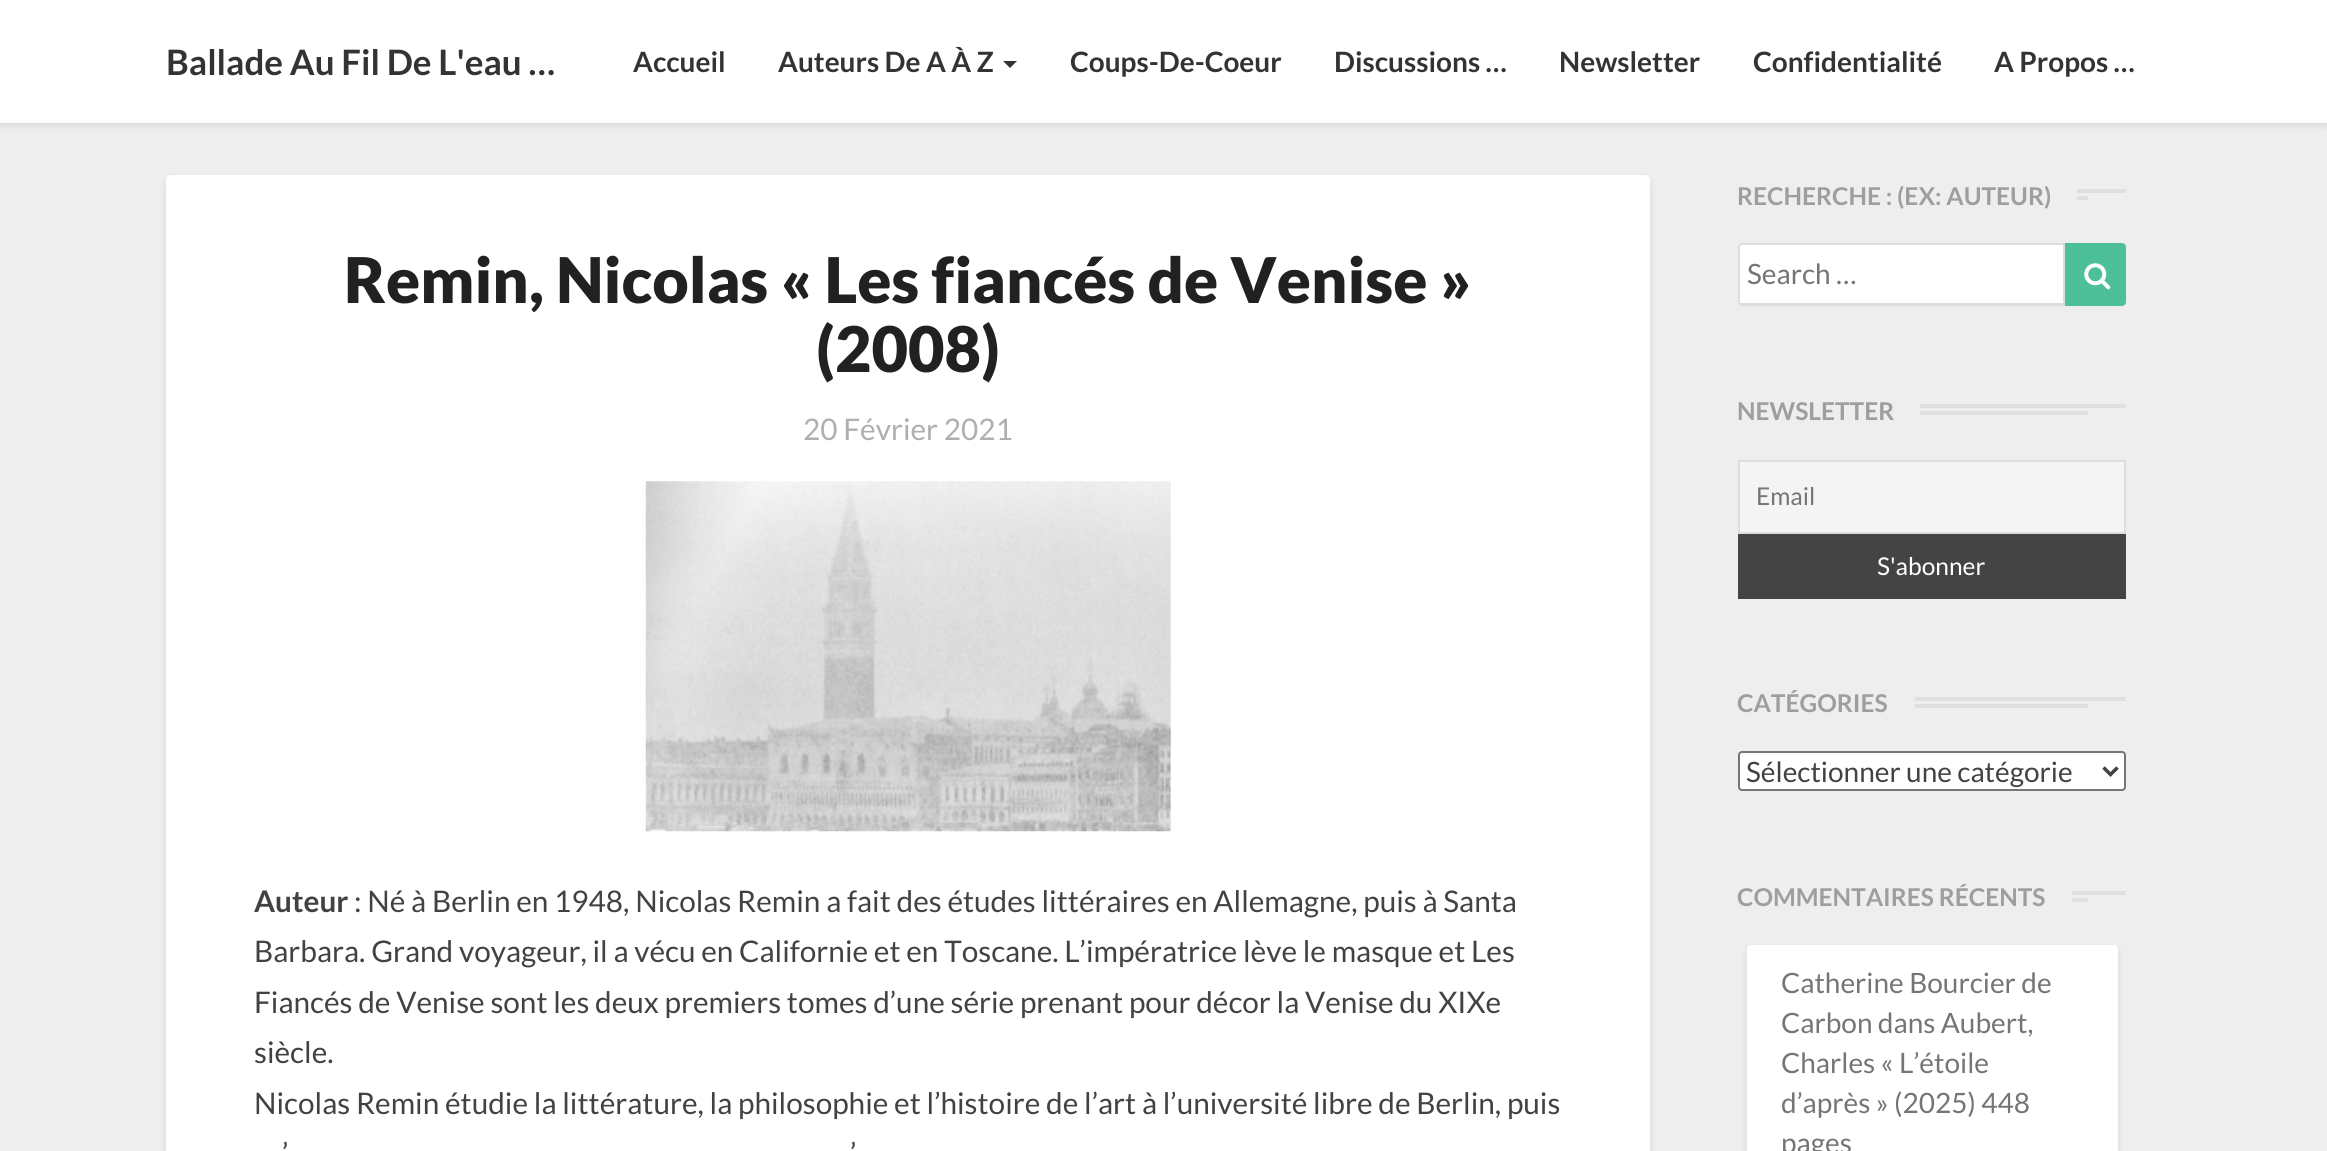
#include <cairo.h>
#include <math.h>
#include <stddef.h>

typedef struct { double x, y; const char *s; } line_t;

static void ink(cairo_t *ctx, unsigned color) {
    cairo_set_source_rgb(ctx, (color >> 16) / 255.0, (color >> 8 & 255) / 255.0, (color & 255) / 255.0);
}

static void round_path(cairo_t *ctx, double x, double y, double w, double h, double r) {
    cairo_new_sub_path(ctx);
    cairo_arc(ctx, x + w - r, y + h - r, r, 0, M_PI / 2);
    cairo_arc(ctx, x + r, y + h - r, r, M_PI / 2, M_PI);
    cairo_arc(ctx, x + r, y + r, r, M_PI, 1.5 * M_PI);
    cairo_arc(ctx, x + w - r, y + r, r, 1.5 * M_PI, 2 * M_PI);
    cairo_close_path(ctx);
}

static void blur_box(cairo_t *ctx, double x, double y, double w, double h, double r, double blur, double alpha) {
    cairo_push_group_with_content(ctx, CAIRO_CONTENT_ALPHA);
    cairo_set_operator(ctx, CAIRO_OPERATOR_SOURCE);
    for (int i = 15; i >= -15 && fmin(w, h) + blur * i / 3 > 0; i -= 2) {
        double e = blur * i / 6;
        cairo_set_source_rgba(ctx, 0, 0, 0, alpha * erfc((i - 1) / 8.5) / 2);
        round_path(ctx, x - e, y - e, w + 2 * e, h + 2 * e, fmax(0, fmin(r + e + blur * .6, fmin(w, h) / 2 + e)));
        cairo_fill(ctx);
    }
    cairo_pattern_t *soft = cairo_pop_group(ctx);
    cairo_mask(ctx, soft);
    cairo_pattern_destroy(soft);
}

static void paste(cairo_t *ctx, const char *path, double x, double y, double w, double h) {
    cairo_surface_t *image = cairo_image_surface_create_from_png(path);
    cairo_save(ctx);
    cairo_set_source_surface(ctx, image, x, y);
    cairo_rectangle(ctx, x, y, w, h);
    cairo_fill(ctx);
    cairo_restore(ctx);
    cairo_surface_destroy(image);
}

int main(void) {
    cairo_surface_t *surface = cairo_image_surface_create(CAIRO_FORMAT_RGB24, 2327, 1151);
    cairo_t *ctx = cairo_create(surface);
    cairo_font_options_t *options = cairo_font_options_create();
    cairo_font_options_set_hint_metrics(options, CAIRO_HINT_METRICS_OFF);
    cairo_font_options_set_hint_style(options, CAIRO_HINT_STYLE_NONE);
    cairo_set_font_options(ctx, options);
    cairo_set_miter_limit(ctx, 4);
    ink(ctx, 0xEEEEEE);
    cairo_paint(ctx);
    ink(ctx, 0x000000);
    blur_box(ctx, 0, 4, 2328, 122, 0, 3.5, 0.1);
    ink(ctx, 0xFFFFFF);
    cairo_rectangle(ctx, 0, 0, 2327, 123);
    cairo_fill(ctx);
    cairo_select_font_face(ctx, "Lato", CAIRO_FONT_SLANT_NORMAL, CAIRO_FONT_WEIGHT_BOLD);
    cairo_set_font_size(ctx, 35);
    ink(ctx, 0x333333);
    cairo_move_to(ctx, 166, 75);
    cairo_show_text(ctx, "Ballade Au Fil De L'eau …");
    cairo_set_font_size(ctx, 28);
    cairo_move_to(ctx, 633, 72);
    cairo_show_text(ctx, "Accueil");
    cairo_move_to(ctx, 778, 72);
    cairo_show_text(ctx, "Auteurs De A À Z");
    cairo_new_path(ctx);
    cairo_move_to(ctx, 1003, 61);
    cairo_line_to(ctx, 1017, 61);
    cairo_line_to(ctx, 1010, 68);
    cairo_close_path(ctx);
    cairo_fill(ctx);
    {
        static const line_t items[] = {
            {1070, 72, "Coups-De-Coeur"},
            {1334, 72, "Discussions …"},
            {1559, 72, "Newsletter"},
            {1753, 72, "Confidentialité"},
            {1994, 72, "A Propos …"},
        };
        for (size_t i = 0; i < sizeof items / sizeof *items; i++) {
            cairo_move_to(ctx, items[i].x, items[i].y);
            cairo_show_text(ctx, items[i].s);
        }
    }
    ink(ctx, 0x000000);
    blur_box(ctx, 166, 179, 1484, 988, 5, 3.5, 0.1);
    ink(ctx, 0xFFFFFF);
    round_path(ctx, 166, 175, 1484, 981, 5);
    cairo_fill(ctx);
    cairo_select_font_face(ctx, "Lato Black", CAIRO_FONT_SLANT_NORMAL, CAIRO_FONT_WEIGHT_NORMAL);
    cairo_set_font_size(ctx, 63);
    ink(ctx, 0x212121);
    cairo_move_to(ctx, 344, 303);
    cairo_show_text(ctx, "Remin, Nicolas « Les fiancés de Venise »");
    cairo_move_to(ctx, 816, 372);
    cairo_show_text(ctx, "(2008)");
    cairo_select_font_face(ctx, "Lato", CAIRO_FONT_SLANT_NORMAL, CAIRO_FONT_WEIGHT_NORMAL);
    cairo_set_font_size(ctx, 29.75);
    ink(ctx, 0xAFAFAF);
    cairo_move_to(ctx, 803, 440);
    cairo_show_text(ctx, "20 Février 2021");
    paste(ctx, "media/1.png", 645, 481, 526, 351);
    cairo_select_font_face(ctx, "Lato", CAIRO_FONT_SLANT_NORMAL, CAIRO_FONT_WEIGHT_BOLD);
    ink(ctx, 0x424242);
    cairo_move_to(ctx, 254, 912);
    cairo_show_text(ctx, "Auteur");
    cairo_select_font_face(ctx, "Lato", CAIRO_FONT_SLANT_NORMAL, CAIRO_FONT_WEIGHT_NORMAL);
    {
        static const line_t items[] = {
            {354, 912, ": Né à Berlin en 1948, Nicolas Remin a fait des études littéraires en Allemagne, puis à Santa"},
            {254, 962, "Barbara. Grand voyageur, il a vécu en Californie et en Toscane. L’impératrice lève le masque et Les"},
            {254, 1013, "Fiancés de Venise sont les deux premiers tomes d’une série prenant pour décor la Venise du XIXe"},
            {254, 1063, "siècle."},
            {254, 1114, "Nicolas Remin étudie la littérature, la philosophie et l’histoire de l’art à l’université libre de Berlin, puis"},
            {282, 1164, "’"},
            {850, 1164, "’"},
        };
        for (size_t i = 0; i < sizeof items / sizeof *items; i++) {
            cairo_move_to(ctx, items[i].x, items[i].y);
            cairo_show_text(ctx, items[i].s);
        }
    }
    cairo_select_font_face(ctx, "Lato", CAIRO_FONT_SLANT_NORMAL, CAIRO_FONT_WEIGHT_BOLD);
    cairo_set_font_size(ctx, 24.5);
    ink(ctx, 0x9E9E9E);
    cairo_move_to(ctx, 1737, 205);
    cairo_show_text(ctx, "RECHERCHE : (EX: AUTEUR)");
    ink(ctx, 0xDFDFDF);
    cairo_rectangle(ctx, 2077, 189, 49, 4);
    cairo_fill(ctx);
    cairo_rectangle(ctx, 2077, 196, 11, 4);
    cairo_fill(ctx);
    ink(ctx, 0xFFFFFF);
    cairo_new_path(ctx);
    cairo_move_to(ctx, 1741, 245);
    cairo_line_to(ctx, 2063, 245);
    cairo_line_to(ctx, 2063, 303);
    cairo_line_to(ctx, 1740, 303);
    cairo_line_to(ctx, 1740, 246);
    cairo_close_path(ctx);
    cairo_fill(ctx);
    cairo_new_path(ctx);
    cairo_move_to(ctx, 1742, 244);
    cairo_line_to(ctx, 2064, 244);
    cairo_line_to(ctx, 2064, 305);
    cairo_line_to(ctx, 1742, 305);
    cairo_curve_to(ctx, 1740.5, 305, 1739, 303.5, 1739, 302);
    cairo_line_to(ctx, 1739, 247);
    cairo_curve_to(ctx, 1739, 245.5, 1740.5, 244, 1742, 244);
    cairo_close_path(ctx);
    ink(ctx, 0xDDDDDD);
    cairo_stroke(ctx);
    cairo_rectangle(ctx, 1740, 303, 325, 1);
    cairo_fill(ctx);
    cairo_select_font_face(ctx, "Lato", CAIRO_FONT_SLANT_NORMAL, CAIRO_FONT_WEIGHT_NORMAL);
    cairo_set_font_size(ctx, 28);
    ink(ctx, 0x757575);
    cairo_move_to(ctx, 1747, 284);
    cairo_show_text(ctx, "Search …");
    ink(ctx, 0x4DBF99);
    cairo_new_path(ctx);
    cairo_move_to(ctx, 2066, 244);
    cairo_line_to(ctx, 2122, 244);
    cairo_curve_to(ctx, 2123.5, 244, 2125, 245.5, 2125, 247);
    cairo_line_to(ctx, 2125, 302);
    cairo_curve_to(ctx, 2125, 303.5, 2123.5, 305, 2122, 305);
    cairo_line_to(ctx, 2066, 305);
    cairo_close_path(ctx);
    cairo_fill_preserve(ctx);
    cairo_stroke(ctx);
    paste(ctx, "media/2.png", 2084, 263, 27, 27);
    cairo_select_font_face(ctx, "Lato", CAIRO_FONT_SLANT_NORMAL, CAIRO_FONT_WEIGHT_BOLD);
    cairo_set_font_size(ctx, 24.5);
    ink(ctx, 0x9E9E9E);
    cairo_move_to(ctx, 1737, 420);
    cairo_show_text(ctx, "NEWSLETTER");
    ink(ctx, 0xDFDFDF);
    cairo_rectangle(ctx, 1920, 404, 206, 4);
    cairo_fill(ctx);
    cairo_rectangle(ctx, 1920, 411, 168, 4);
    cairo_fill(ctx);
    ink(ctx, 0xF4F4F4);
    cairo_rectangle(ctx, 1739, 461, 386, 72);
    cairo_fill_preserve(ctx);
    ink(ctx, 0xDDDDDD);
    cairo_stroke(ctx);
    cairo_select_font_face(ctx, "Lato", CAIRO_FONT_SLANT_NORMAL, CAIRO_FONT_WEIGHT_NORMAL);
    ink(ctx, 0x757575);
    cairo_move_to(ctx, 1756, 505);
    cairo_show_text(ctx, "Email");
    ink(ctx, 0x444444);
    cairo_rectangle(ctx, 1738, 534, 388, 65);
    cairo_fill(ctx);
    ink(ctx, 0xFFFFFF);
    cairo_move_to(ctx, 1877, 575);
    cairo_show_text(ctx, "S'abonner");
    cairo_select_font_face(ctx, "Lato", CAIRO_FONT_SLANT_NORMAL, CAIRO_FONT_WEIGHT_BOLD);
    ink(ctx, 0x9E9E9E);
    cairo_move_to(ctx, 1737, 712);
    cairo_show_text(ctx, "CATÉGORIES");
    ink(ctx, 0xDFDFDF);
    cairo_rectangle(ctx, 1915, 697, 211, 4);
    cairo_fill(ctx);
    cairo_rectangle(ctx, 1915, 704, 173, 4);
    cairo_fill(ctx);
    ink(ctx, 0xFFFFFF);
    round_path(ctx, 1739, 752, 386, 38, 3);
    cairo_fill_preserve(ctx);
    ink(ctx, 0x767676);
    cairo_stroke(ctx);
    cairo_new_path(ctx);
    cairo_move_to(ctx, 2103.5, 767.5);
    cairo_line_to(ctx, 2110.5, 774.5);
    cairo_line_to(ctx, 2117.5, 767.5);
    ink(ctx, 0x424242);
    cairo_set_line_width(ctx, 3.5);
    cairo_stroke(ctx);
    cairo_select_font_face(ctx, "Lato", CAIRO_FONT_SLANT_NORMAL, CAIRO_FONT_WEIGHT_NORMAL);
    cairo_set_font_size(ctx, 28);
    cairo_move_to(ctx, 1746, 782);
    cairo_show_text(ctx, "Sélectionner une catégorie");
    cairo_select_font_face(ctx, "Lato", CAIRO_FONT_SLANT_NORMAL, CAIRO_FONT_WEIGHT_BOLD);
    cairo_set_font_size(ctx, 24.5);
    ink(ctx, 0x9E9E9E);
    cairo_move_to(ctx, 1737, 906);
    cairo_show_text(ctx, "COMMENTAIRES RÉCENTS");
    ink(ctx, 0xDFDFDF);
    cairo_rectangle(ctx, 2072, 891, 54, 4);
    cairo_fill(ctx);
    cairo_rectangle(ctx, 2072, 898, 16, 4);
    cairo_fill(ctx);
    ink(ctx, 0x000000);
    blur_box(ctx, 1747, 949, 371, 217, 4, 3.5, 0.1);
    ink(ctx, 0xFFFFFF);
    round_path(ctx, 1747, 945, 371, 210, 4);
    cairo_fill(ctx);
    cairo_select_font_face(ctx, "Lato", CAIRO_FONT_SLANT_NORMAL, CAIRO_FONT_WEIGHT_NORMAL);
    cairo_set_font_size(ctx, 28);
    ink(ctx, 0x757575);
    {
        static const line_t items[] = {
            {1781, 993, "Catherine Bourcier de"},
            {1781, 1033, "Carbon dans Aubert,"},
            {1781, 1073, "Charles « L’étoile"},
            {1781, 1113, "d’après » (2025) 448"},
            {1781, 1153, "pages"},
        };
        for (size_t i = 0; i < sizeof items / sizeof *items; i++) {
            cairo_move_to(ctx, items[i].x, items[i].y);
            cairo_show_text(ctx, items[i].s);
        }
    }
    cairo_surface_write_to_png(surface, "image.png");
    cairo_font_options_destroy(options);
    cairo_destroy(ctx);
    cairo_surface_destroy(surface);
    return 0;
}
